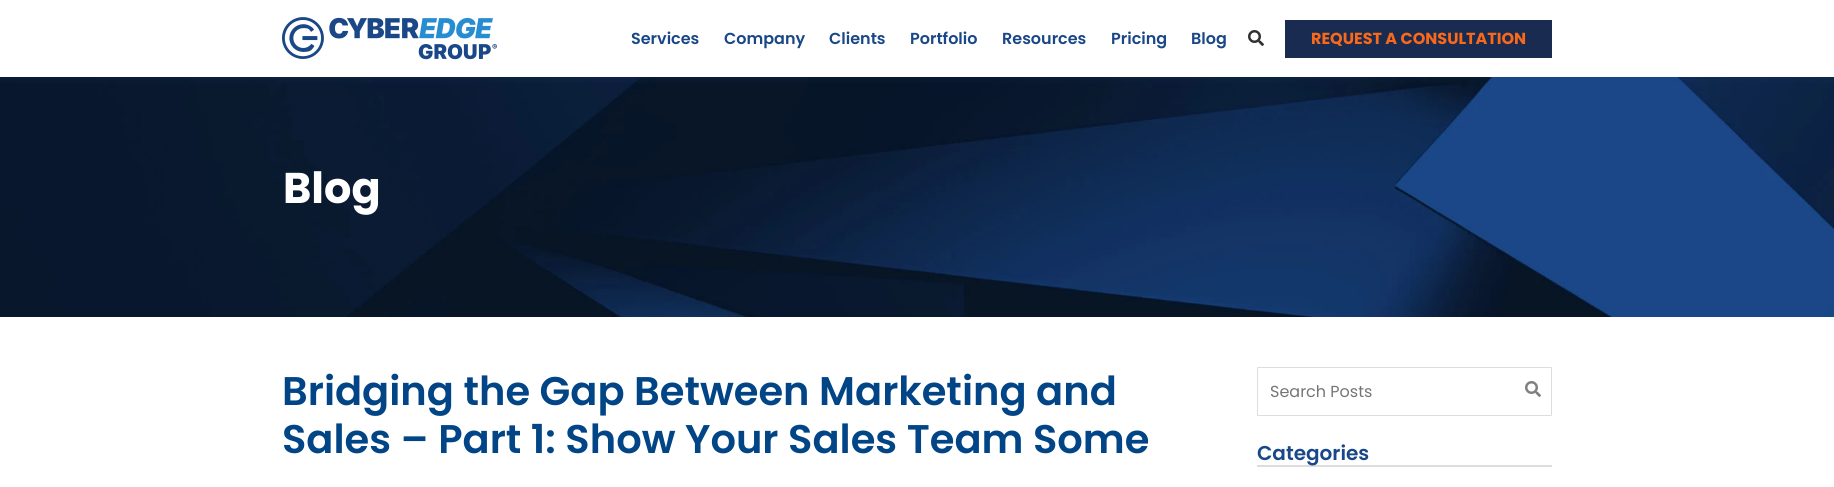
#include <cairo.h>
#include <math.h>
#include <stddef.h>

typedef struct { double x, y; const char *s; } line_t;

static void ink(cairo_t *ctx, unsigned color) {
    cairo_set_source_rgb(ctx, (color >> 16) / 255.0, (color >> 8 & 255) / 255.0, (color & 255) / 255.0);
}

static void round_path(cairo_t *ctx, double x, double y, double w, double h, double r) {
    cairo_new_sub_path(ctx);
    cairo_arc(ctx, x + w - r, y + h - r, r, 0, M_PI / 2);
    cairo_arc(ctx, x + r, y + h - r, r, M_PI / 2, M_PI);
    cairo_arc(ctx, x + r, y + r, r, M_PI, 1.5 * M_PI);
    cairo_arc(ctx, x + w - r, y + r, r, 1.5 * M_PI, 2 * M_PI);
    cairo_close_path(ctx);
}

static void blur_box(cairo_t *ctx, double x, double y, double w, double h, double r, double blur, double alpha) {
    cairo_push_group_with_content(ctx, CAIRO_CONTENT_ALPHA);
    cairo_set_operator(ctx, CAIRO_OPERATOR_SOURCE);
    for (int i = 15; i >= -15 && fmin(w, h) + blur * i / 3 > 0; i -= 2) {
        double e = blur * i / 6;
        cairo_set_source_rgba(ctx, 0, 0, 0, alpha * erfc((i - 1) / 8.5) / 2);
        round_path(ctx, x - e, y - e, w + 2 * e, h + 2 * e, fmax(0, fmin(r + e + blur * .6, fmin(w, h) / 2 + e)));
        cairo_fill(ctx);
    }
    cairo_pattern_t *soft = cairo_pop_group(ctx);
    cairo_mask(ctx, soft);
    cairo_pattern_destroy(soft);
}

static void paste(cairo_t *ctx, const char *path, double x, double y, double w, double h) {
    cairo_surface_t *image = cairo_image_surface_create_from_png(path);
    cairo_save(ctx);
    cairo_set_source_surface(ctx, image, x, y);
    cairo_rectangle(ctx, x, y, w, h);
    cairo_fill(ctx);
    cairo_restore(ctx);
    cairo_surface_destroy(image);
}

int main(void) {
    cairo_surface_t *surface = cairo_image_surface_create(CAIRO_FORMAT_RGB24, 1834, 487);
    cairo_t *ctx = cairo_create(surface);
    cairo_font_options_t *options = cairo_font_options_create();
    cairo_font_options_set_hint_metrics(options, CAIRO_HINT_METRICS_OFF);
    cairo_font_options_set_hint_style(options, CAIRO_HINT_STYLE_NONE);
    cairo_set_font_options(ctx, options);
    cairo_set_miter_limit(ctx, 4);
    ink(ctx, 0xFFFFFF);
    cairo_paint(ctx);
    paste(ctx, "media/3.png", 0, 77, 1834, 240);
    cairo_save(ctx);
    cairo_rectangle(ctx, 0, 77, 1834, 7);
    cairo_clip(ctx);
    ink(ctx, 0x194787);
    blur_box(ctx, 0, 0, 1834, 77, 0, 5, 0.25);
    cairo_restore(ctx);
    paste(ctx, "media/1.png", 282, 17, 215, 43);
    cairo_select_font_face(ctx, "Poppins SemiBold", CAIRO_FONT_SLANT_NORMAL, CAIRO_FONT_WEIGHT_NORMAL);
    cairo_set_font_size(ctx, 16);
    ink(ctx, 0x194787);
    {
        static const line_t items[] = {
            {631, 44, "Services"},
            {724, 44, "Company"},
            {829, 44, "Clients"},
            {910, 44, "Portfolio"},
            {1002, 44, "Resources"},
            {1111, 44, "Pricing"},
            {1191, 44, "Blog"},
        };
        for (size_t i = 0; i < sizeof items / sizeof *items; i++) {
            cairo_move_to(ctx, items[i].x, items[i].y);
            cairo_show_text(ctx, items[i].s);
        }
    }
    paste(ctx, "media/2.png", 1248, 30, 16, 16);
    ink(ctx, 0x1A2B52);
    cairo_rectangle(ctx, 1285, 20, 267, 38);
    cairo_fill(ctx);
    cairo_select_font_face(ctx, "Poppins", CAIRO_FONT_SLANT_NORMAL, CAIRO_FONT_WEIGHT_BOLD);
    ink(ctx, 0xF96919);
    cairo_move_to(ctx, 1311, 44);
    cairo_show_text(ctx, "REQUEST A CONSULTATION");
    cairo_set_font_size(ctx, 43);
    ink(ctx, 0xFFFFFF);
    cairo_move_to(ctx, 283, 203);
    cairo_show_text(ctx, "Blog");
    cairo_select_font_face(ctx, "Poppins SemiBold", CAIRO_FONT_SLANT_NORMAL, CAIRO_FONT_WEIGHT_NORMAL);
    cairo_set_font_size(ctx, 40);
    ink(ctx, 0x014586);
    cairo_move_to(ctx, 282, 405);
    cairo_show_text(ctx, "Bridging the Gap Between Marketing and");
    cairo_move_to(ctx, 282, 453);
    cairo_show_text(ctx, "Sales – Part 1: Show Your Sales Team Some");
    round_path(ctx, 1257.5, 367.5, 294, 48, 0.5);
    ink(ctx, 0xDDDDDD);
    cairo_set_line_width(ctx, 1);
    cairo_stroke(ctx);
    cairo_select_font_face(ctx, "Poppins", CAIRO_FONT_SLANT_NORMAL, CAIRO_FONT_WEIGHT_NORMAL);
    cairo_set_font_size(ctx, 16);
    ink(ctx, 0x757575);
    cairo_move_to(ctx, 1270, 397);
    cairo_show_text(ctx, "Search Posts");
    paste(ctx, "media/4.png", 1525, 381, 16, 16);
    ink(ctx, 0xDDDDDD);
    cairo_rectangle(ctx, 1257, 465, 295, 2);
    cairo_fill(ctx);
    cairo_select_font_face(ctx, "Poppins SemiBold", CAIRO_FONT_SLANT_NORMAL, CAIRO_FONT_WEIGHT_NORMAL);
    cairo_set_font_size(ctx, 20);
    ink(ctx, 0x194787);
    cairo_move_to(ctx, 1257, 460);
    cairo_show_text(ctx, "Categories");
    cairo_surface_write_to_png(surface, "image.png");
    cairo_font_options_destroy(options);
    cairo_destroy(ctx);
    cairo_surface_destroy(surface);
    return 0;
}
